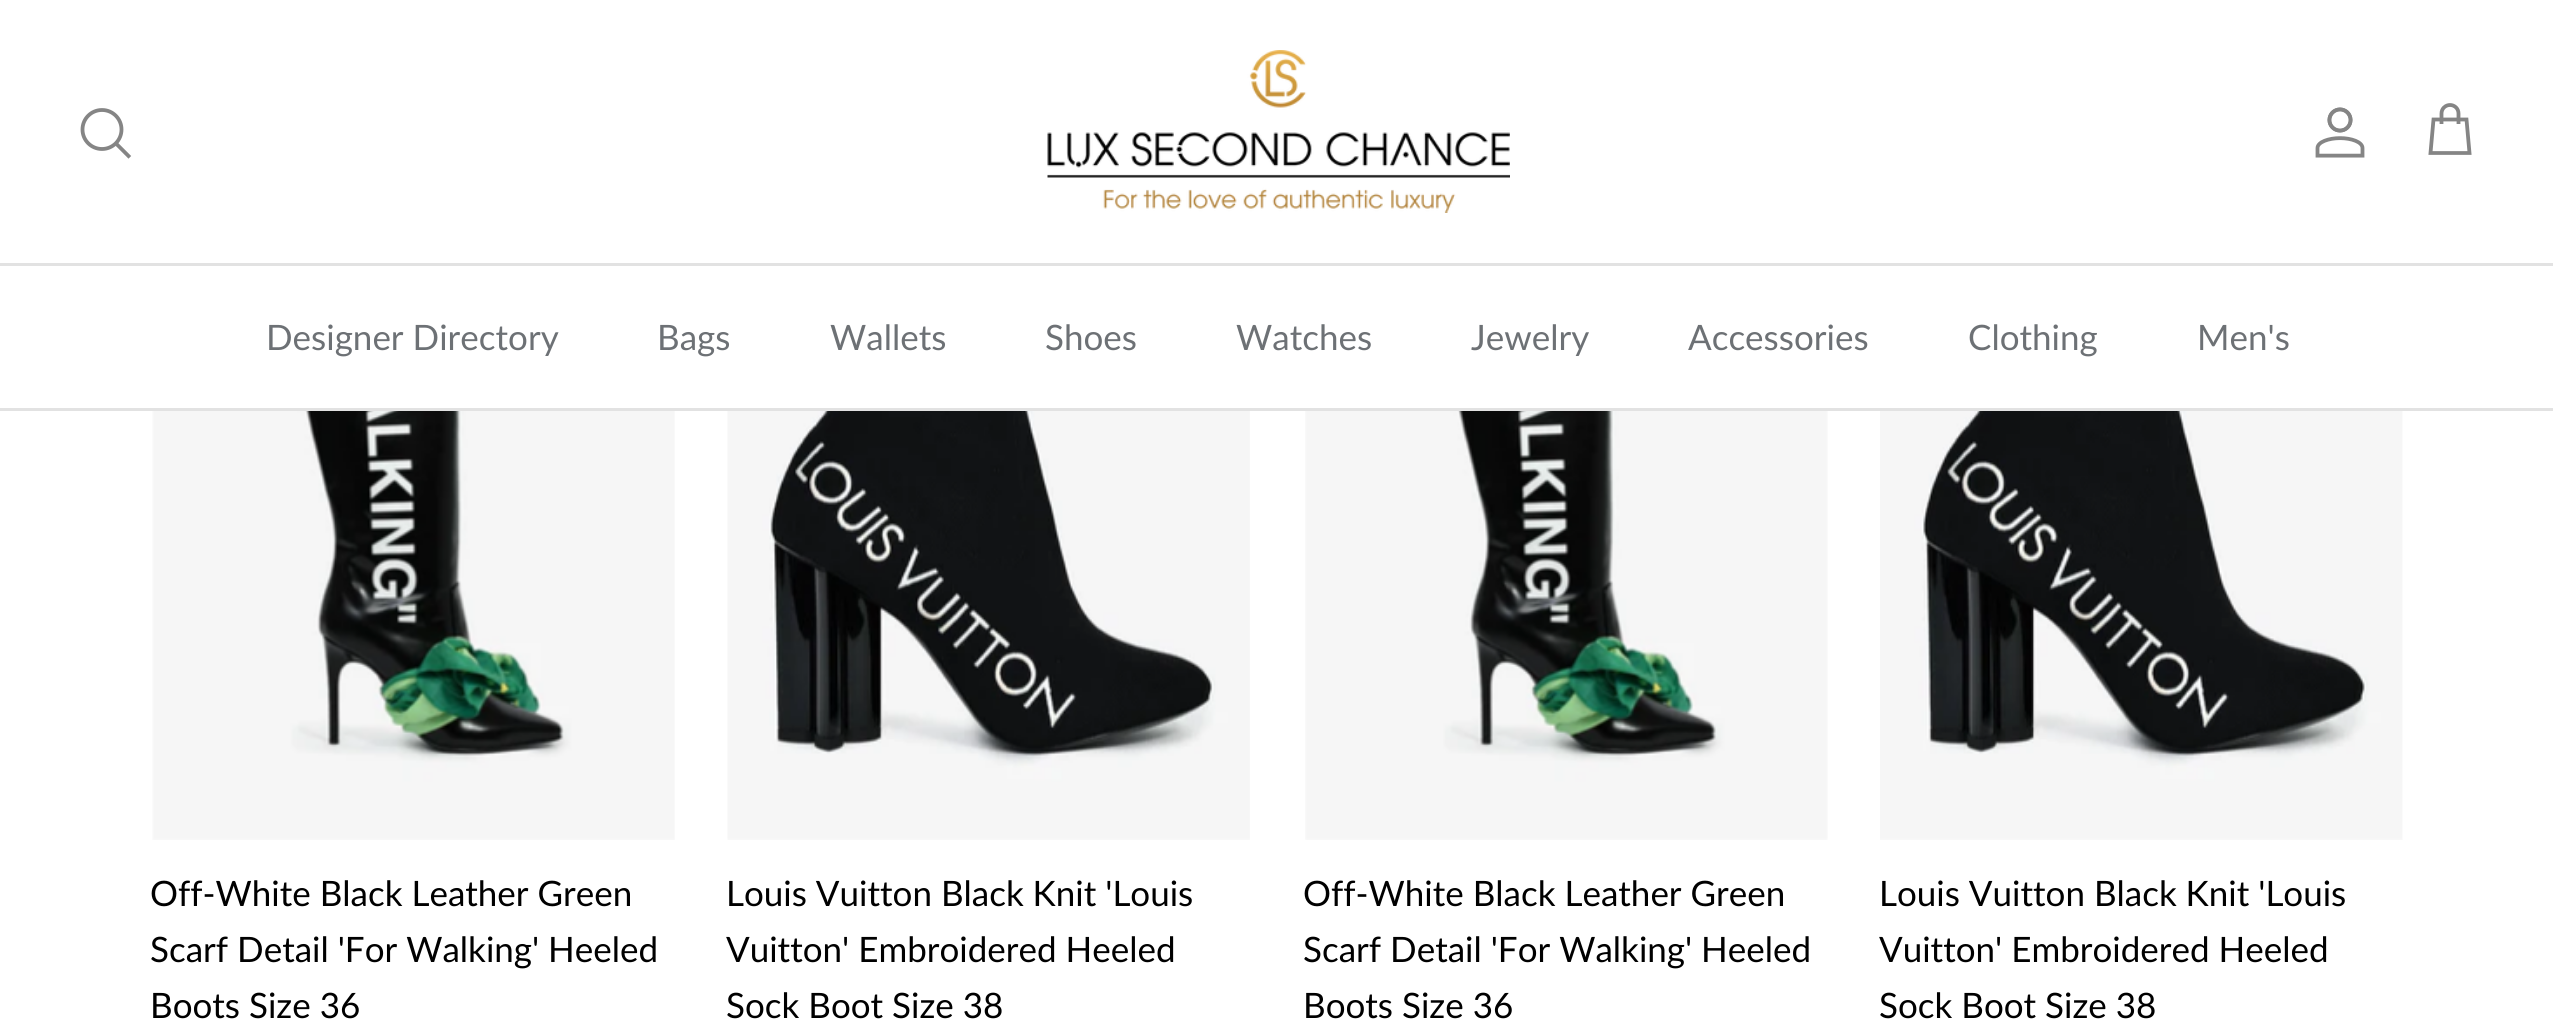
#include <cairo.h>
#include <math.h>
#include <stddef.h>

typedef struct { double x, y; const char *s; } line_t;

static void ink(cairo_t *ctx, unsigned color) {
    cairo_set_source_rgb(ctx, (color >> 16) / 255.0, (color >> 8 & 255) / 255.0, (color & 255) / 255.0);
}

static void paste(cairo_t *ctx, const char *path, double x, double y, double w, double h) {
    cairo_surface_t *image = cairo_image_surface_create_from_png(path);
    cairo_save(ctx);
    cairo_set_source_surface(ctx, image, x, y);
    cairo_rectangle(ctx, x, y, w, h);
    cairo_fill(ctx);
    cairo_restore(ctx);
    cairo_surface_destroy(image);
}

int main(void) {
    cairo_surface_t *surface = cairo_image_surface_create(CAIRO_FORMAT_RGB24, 2553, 1031);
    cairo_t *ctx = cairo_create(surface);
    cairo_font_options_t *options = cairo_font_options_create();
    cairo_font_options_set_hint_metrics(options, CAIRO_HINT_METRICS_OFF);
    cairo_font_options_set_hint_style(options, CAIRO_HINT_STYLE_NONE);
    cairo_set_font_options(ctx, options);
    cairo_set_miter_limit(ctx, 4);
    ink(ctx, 0xFFFFFF);
    cairo_paint(ctx);
    ink(ctx, 0xE2E2E2);
    cairo_rectangle(ctx, 0, 263, 2553, 3);
    cairo_fill(ctx);
    cairo_arc(ctx, 102, 129.5, 19.5, 0, 2 * M_PI);
    ink(ctx, 0x858585);
    cairo_set_line_width(ctx, 3.8);
    cairo_stroke(ctx);
    cairo_new_path(ctx);
    cairo_move_to(ctx, 117.5, 145);
    cairo_line_to(ctx, 128.5, 156);
    cairo_set_line_cap(ctx, CAIRO_LINE_CAP_SQUARE);
    cairo_stroke(ctx);
    paste(ctx, "media/1.png", 1047, 50, 463, 163);
    paste(ctx, "media/2.png", 2315, 107, 50, 51);
    cairo_new_path(ctx);
    cairo_move_to(ctx, 2458.5, 124);
    cairo_line_to(ctx, 2458.5, 113.5);
    cairo_curve_to(ctx, 2458.5, 108.5, 2454.5, 105, 2450, 105);
    cairo_curve_to(ctx, 2445.5, 105, 2441.5, 108.5, 2441.5, 113.5);
    cairo_line_to(ctx, 2441.5, 124);
    cairo_move_to(ctx, 2433.5, 119.5);
    cairo_line_to(ctx, 2466.5, 119.5);
    cairo_line_to(ctx, 2469.5, 153);
    cairo_line_to(ctx, 2430.5, 153);
    cairo_close_path(ctx);
    cairo_set_line_cap(ctx, CAIRO_LINE_CAP_BUTT);
    cairo_stroke(ctx);
    ink(ctx, 0xE2E2E2);
    cairo_rectangle(ctx, 0, 408, 2553, 3);
    cairo_fill(ctx);
    cairo_select_font_face(ctx, "Lato", CAIRO_FONT_SLANT_NORMAL, CAIRO_FONT_WEIGHT_NORMAL);
    cairo_set_font_size(ctx, 35);
    ink(ctx, 0x6D7175);
    {
        static const line_t items[] = {
            {266, 350, "Designer Directory"},
            {657, 350, "Bags"},
            {830, 350, "Wallets"},
            {1045, 350, "Shoes"},
            {1236, 350, "Watches"},
            {1471, 350, "Jewelry"},
            {1688, 350, "Accessories"},
            {1968, 350, "Clothing"},
            {2197, 350, "Men's"},
        };
        for (size_t i = 0; i < sizeof items / sizeof *items; i++) {
            cairo_move_to(ctx, items[i].x, items[i].y);
            cairo_show_text(ctx, items[i].s);
        }
    }
    paste(ctx, "media/3.png", 152, 411, 523, 429);
    ink(ctx, 0x000000);
    {
        static const line_t items[] = {
            {150, 906, "Off-White Black Leather Green"},
            {150, 962, "Scarf Detail 'For Walking' Heeled"},
            {150, 1018, "Boots Size 36"},
        };
        for (size_t i = 0; i < sizeof items / sizeof *items; i++) {
            cairo_move_to(ctx, items[i].x, items[i].y);
            cairo_show_text(ctx, items[i].s);
        }
    }
    paste(ctx, "media/4.png", 727, 411, 523, 429);
    {
        static const line_t items[] = {
            {726, 906, "Louis Vuitton Black Knit 'Louis"},
            {726, 962, "Vuitton' Embroidered Heeled"},
            {726, 1018, "Sock Boot Size 38"},
        };
        for (size_t i = 0; i < sizeof items / sizeof *items; i++) {
            cairo_move_to(ctx, items[i].x, items[i].y);
            cairo_show_text(ctx, items[i].s);
        }
    }
    paste(ctx, "media/5.png", 1305, 411, 523, 429);
    {
        static const line_t items[] = {
            {1303, 906, "Off-White Black Leather Green"},
            {1303, 962, "Scarf Detail 'For Walking' Heeled"},
            {1303, 1018, "Boots Size 36"},
        };
        for (size_t i = 0; i < sizeof items / sizeof *items; i++) {
            cairo_move_to(ctx, items[i].x, items[i].y);
            cairo_show_text(ctx, items[i].s);
        }
    }
    paste(ctx, "media/6.png", 1880, 411, 523, 429);
    {
        static const line_t items[] = {
            {1879, 906, "Louis Vuitton Black Knit 'Louis"},
            {1879, 962, "Vuitton' Embroidered Heeled"},
            {1879, 1018, "Sock Boot Size 38"},
        };
        for (size_t i = 0; i < sizeof items / sizeof *items; i++) {
            cairo_move_to(ctx, items[i].x, items[i].y);
            cairo_show_text(ctx, items[i].s);
        }
    }
    cairo_surface_write_to_png(surface, "image.png");
    cairo_font_options_destroy(options);
    cairo_destroy(ctx);
    cairo_surface_destroy(surface);
    return 0;
}
